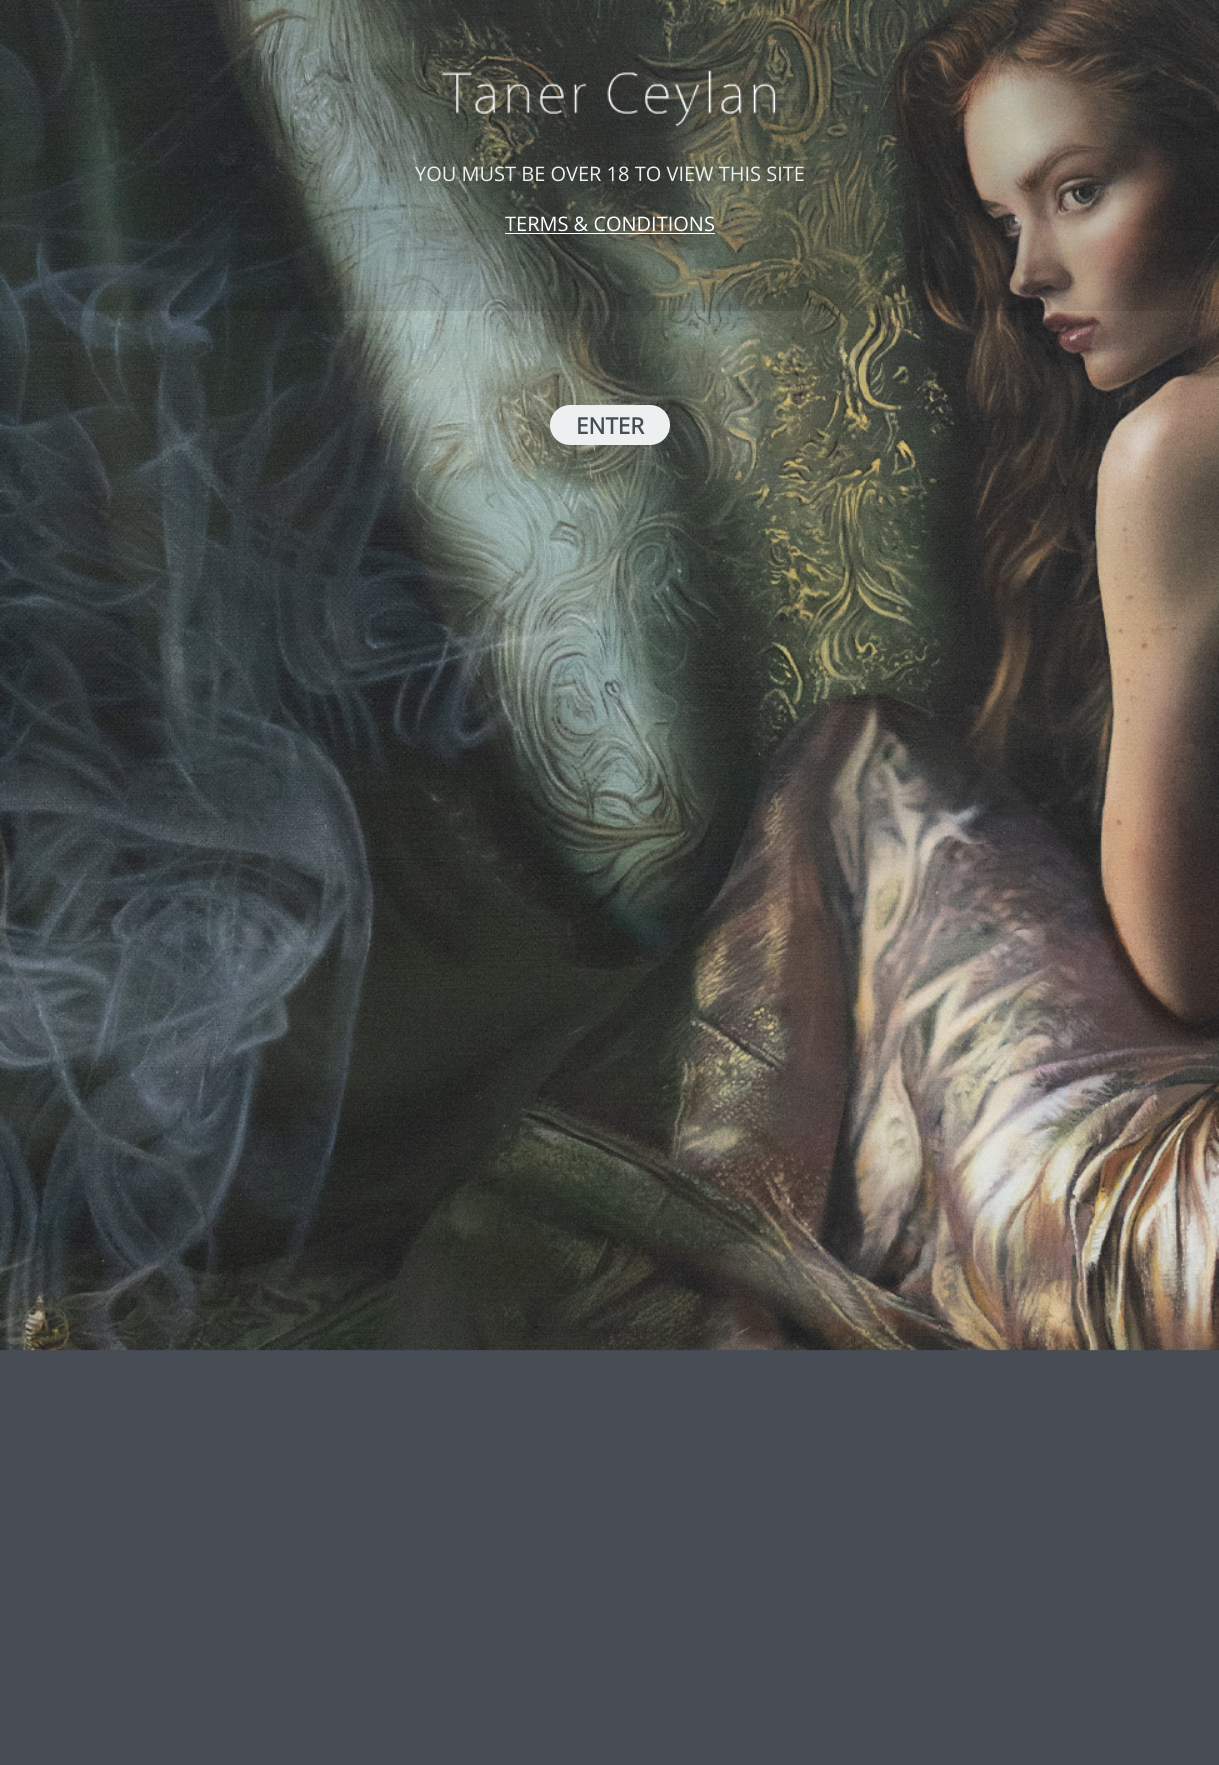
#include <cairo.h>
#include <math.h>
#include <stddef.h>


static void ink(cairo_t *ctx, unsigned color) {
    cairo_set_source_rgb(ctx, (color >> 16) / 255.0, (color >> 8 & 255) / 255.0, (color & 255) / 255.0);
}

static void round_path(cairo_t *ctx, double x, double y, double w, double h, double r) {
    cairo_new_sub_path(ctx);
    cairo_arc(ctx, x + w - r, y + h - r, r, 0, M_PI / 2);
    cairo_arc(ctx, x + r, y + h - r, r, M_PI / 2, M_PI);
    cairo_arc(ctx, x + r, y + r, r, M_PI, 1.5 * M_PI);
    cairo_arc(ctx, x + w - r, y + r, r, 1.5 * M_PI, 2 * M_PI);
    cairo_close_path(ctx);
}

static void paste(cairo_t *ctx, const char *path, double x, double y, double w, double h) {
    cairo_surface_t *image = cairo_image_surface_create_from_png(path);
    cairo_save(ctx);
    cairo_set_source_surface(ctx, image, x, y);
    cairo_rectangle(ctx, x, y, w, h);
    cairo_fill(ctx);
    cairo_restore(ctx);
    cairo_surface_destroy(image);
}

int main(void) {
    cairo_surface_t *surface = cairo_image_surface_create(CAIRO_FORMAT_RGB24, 1219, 1765);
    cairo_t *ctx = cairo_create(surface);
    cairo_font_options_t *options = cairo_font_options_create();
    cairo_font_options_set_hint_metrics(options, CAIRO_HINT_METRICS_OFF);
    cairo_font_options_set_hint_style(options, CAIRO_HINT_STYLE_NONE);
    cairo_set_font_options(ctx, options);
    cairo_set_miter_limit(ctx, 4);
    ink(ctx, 0x474C55);
    cairo_paint(ctx);
    paste(ctx, "media/1.png", 0, 0, 1219, 1351);
    cairo_set_source_rgba(ctx, 0, 0, 0, 0.1);
    cairo_rectangle(ctx, 0, 0, 1219, 311);
    cairo_fill(ctx);
    paste(ctx, "media/2.png", 442, 70, 334, 57);
    cairo_select_font_face(ctx, "Open Sans", CAIRO_FONT_SLANT_NORMAL, CAIRO_FONT_WEIGHT_NORMAL);
    cairo_set_font_size(ctx, 20);
    ink(ctx, 0xECF0F1);
    cairo_move_to(ctx, 415, 181);
    cairo_show_text(ctx, "YOU MUST BE OVER 18 TO VIEW THIS SITE");
    ink(ctx, 0xFFFFFF);
    cairo_move_to(ctx, 505, 231);
    cairo_show_text(ctx, "TERMS & CONDITIONS");
    cairo_rectangle(ctx, 505, 233, 210, 1);
    cairo_fill(ctx);
    ink(ctx, 0xECF0F1);
    round_path(ctx, 550, 405, 120, 40, 20);
    cairo_fill(ctx);
    cairo_select_font_face(ctx, "Open Sans", CAIRO_FONT_SLANT_NORMAL, CAIRO_FONT_WEIGHT_BOLD);
    cairo_set_font_size(ctx, 22.5);
    ink(ctx, 0x474C55);
    cairo_move_to(ctx, 576, 434);
    cairo_show_text(ctx, "ENTER");
    cairo_surface_write_to_png(surface, "image.png");
    cairo_font_options_destroy(options);
    cairo_destroy(ctx);
    cairo_surface_destroy(surface);
    return 0;
}
